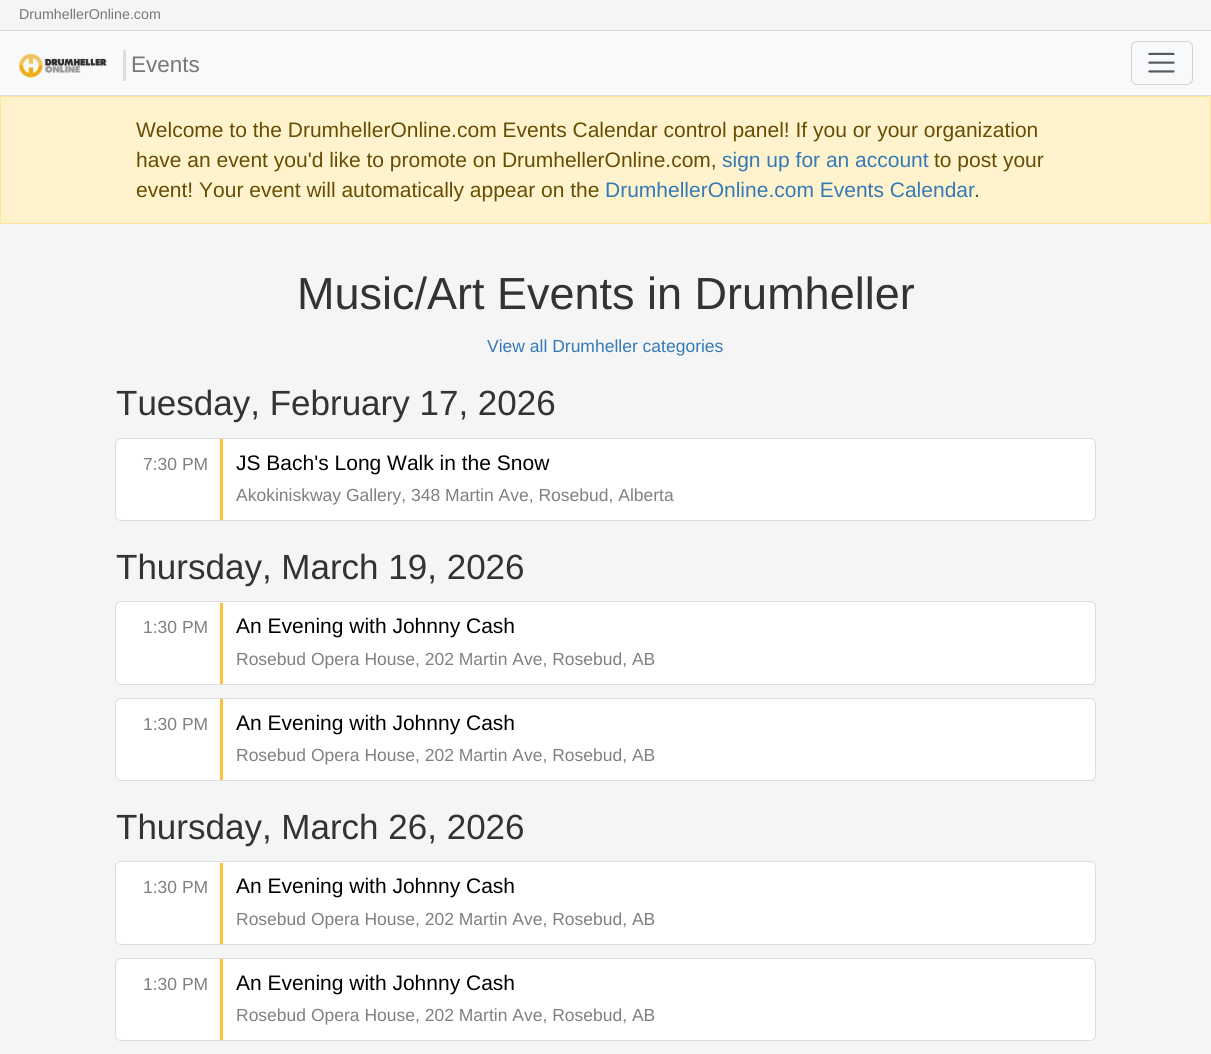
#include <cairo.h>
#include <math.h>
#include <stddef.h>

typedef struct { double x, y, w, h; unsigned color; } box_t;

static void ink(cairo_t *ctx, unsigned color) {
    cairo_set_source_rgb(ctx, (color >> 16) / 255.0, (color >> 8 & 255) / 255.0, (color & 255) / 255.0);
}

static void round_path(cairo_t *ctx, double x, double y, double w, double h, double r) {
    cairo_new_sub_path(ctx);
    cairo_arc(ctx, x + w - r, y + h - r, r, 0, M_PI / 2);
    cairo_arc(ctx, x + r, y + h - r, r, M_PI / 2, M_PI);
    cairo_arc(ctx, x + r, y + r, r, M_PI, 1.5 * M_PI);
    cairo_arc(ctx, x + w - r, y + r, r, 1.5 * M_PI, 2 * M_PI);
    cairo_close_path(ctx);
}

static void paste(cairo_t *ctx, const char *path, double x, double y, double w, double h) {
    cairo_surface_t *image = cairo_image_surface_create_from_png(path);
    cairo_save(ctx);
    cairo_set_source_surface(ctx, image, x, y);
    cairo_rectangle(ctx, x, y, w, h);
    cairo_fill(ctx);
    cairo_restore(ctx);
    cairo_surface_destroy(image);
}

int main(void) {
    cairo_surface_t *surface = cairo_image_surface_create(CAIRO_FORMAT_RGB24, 1211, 1054);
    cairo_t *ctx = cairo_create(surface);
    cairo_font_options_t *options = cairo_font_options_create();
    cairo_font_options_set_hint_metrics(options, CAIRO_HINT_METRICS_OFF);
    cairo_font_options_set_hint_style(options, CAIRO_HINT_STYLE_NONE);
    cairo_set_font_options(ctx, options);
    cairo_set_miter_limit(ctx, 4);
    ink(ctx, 0xF5F5F5);
    cairo_paint(ctx);
    {
        static const box_t items[] = {
            {0, 31, 1211, 64, 0xF8F9FA},
            {0, 95, 1211, 1, 0xDDDDDD},
            {0, 30, 1211, 1, 0xDDDDDD},
        };
        for (size_t i = 0; i < sizeof items / sizeof *items; i++) {
            ink(ctx, items[i].color);
            cairo_rectangle(ctx, items[i].x, items[i].y, items[i].w, items[i].h);
            cairo_fill(ctx);
        }
    }
    cairo_select_font_face(ctx, "Liberation Sans", CAIRO_FONT_SLANT_NORMAL, CAIRO_FONT_WEIGHT_NORMAL);
    cairo_set_font_size(ctx, 14.25);
    ink(ctx, 0x777777);
    cairo_move_to(ctx, 19, 19);
    cairo_show_text(ctx, "DrumhellerOnline.com");
    paste(ctx, "media/1.png", 18, 53, 89, 25);
    ink(ctx, 0xDDDDDD);
    cairo_rectangle(ctx, 123, 50, 3, 31);
    cairo_fill(ctx);
    cairo_set_font_size(ctx, 22.5);
    ink(ctx, 0x777777);
    cairo_move_to(ctx, 131, 72);
    cairo_show_text(ctx, "Events");
    round_path(ctx, 1131.5, 41.5, 61, 43, 5.5);
    ink(ctx, 0xD3D4D5);
    cairo_set_line_width(ctx, 1);
    cairo_stroke(ctx);
    paste(ctx, "media/2.png", 1148, 52, 27, 21);
    ink(ctx, 0xFFF3CD);
    cairo_rectangle(ctx, 0.5, 96.5, 1210, 127);
    cairo_fill_preserve(ctx);
    ink(ctx, 0xFFE69C);
    cairo_stroke(ctx);
    cairo_set_font_size(ctx, 21);
    ink(ctx, 0x664D03);
    cairo_move_to(ctx, 136, 137);
    cairo_show_text(ctx, "Welcome to the DrumhellerOnline.com Events Calendar control panel! If you or your organization");
    cairo_move_to(ctx, 136, 167);
    cairo_show_text(ctx, "have an event you'd like to promote on DrumhellerOnline.com,");
    ink(ctx, 0x337AB7);
    cairo_move_to(ctx, 722, 167);
    cairo_show_text(ctx, "sign up for an account");
    ink(ctx, 0x664D03);
    cairo_move_to(ctx, 934, 167);
    cairo_show_text(ctx, "to post your");
    cairo_move_to(ctx, 136, 197);
    cairo_show_text(ctx, "event! Your event will automatically appear on the");
    ink(ctx, 0x337AB7);
    cairo_move_to(ctx, 605, 197);
    cairo_show_text(ctx, "DrumhellerOnline.com Events Calendar");
    ink(ctx, 0x664D03);
    cairo_move_to(ctx, 974, 197);
    cairo_show_text(ctx, ".");
    cairo_set_font_size(ctx, 45);
    ink(ctx, 0x333333);
    cairo_move_to(ctx, 297, 309);
    cairo_show_text(ctx, "Music/Art Events in Drumheller");
    cairo_set_font_size(ctx, 17.5);
    ink(ctx, 0x337AB7);
    cairo_move_to(ctx, 487, 352);
    cairo_show_text(ctx, "View all Drumheller categories");
    cairo_set_font_size(ctx, 35);
    ink(ctx, 0x333333);
    cairo_move_to(ctx, 116, 415);
    cairo_show_text(ctx, "Tuesday, February 17, 2026");
    ink(ctx, 0xFFFFFF);
    round_path(ctx, 115.5, 438.5, 980, 82, 5.5);
    cairo_fill_preserve(ctx);
    ink(ctx, 0xDDDDDD);
    cairo_stroke(ctx);
    ink(ctx, 0xFEC13E);
    cairo_rectangle(ctx, 220, 439, 3, 81);
    cairo_fill(ctx);
    cairo_set_font_size(ctx, 17.5);
    ink(ctx, 0x808080);
    cairo_move_to(ctx, 143, 470);
    cairo_show_text(ctx, "7:30 PM");
    cairo_set_font_size(ctx, 21);
    ink(ctx, 0x000000);
    cairo_move_to(ctx, 236, 470);
    cairo_show_text(ctx, "JS Bach's Long Walk in the Snow");
    cairo_set_font_size(ctx, 17.5);
    ink(ctx, 0x808080);
    cairo_move_to(ctx, 236, 501);
    cairo_show_text(ctx, "Akokiniskway Gallery, 348 Martin Ave, Rosebud, Alberta");
    cairo_set_font_size(ctx, 35);
    ink(ctx, 0x333333);
    cairo_move_to(ctx, 116, 579);
    cairo_show_text(ctx, "Thursday, March 19, 2026");
    ink(ctx, 0xFFFFFF);
    round_path(ctx, 115.5, 601.5, 980, 83, 5.5);
    cairo_fill_preserve(ctx);
    ink(ctx, 0xDDDDDD);
    cairo_stroke(ctx);
    ink(ctx, 0xFEC13E);
    cairo_rectangle(ctx, 220, 603, 3, 81);
    cairo_fill(ctx);
    cairo_set_font_size(ctx, 17.5);
    ink(ctx, 0x808080);
    cairo_move_to(ctx, 143, 633);
    cairo_show_text(ctx, "1:30 PM");
    cairo_set_font_size(ctx, 21);
    ink(ctx, 0x000000);
    cairo_move_to(ctx, 236, 633);
    cairo_show_text(ctx, "An Evening with Johnny Cash");
    cairo_set_font_size(ctx, 17.5);
    ink(ctx, 0x808080);
    cairo_move_to(ctx, 236, 665);
    cairo_show_text(ctx, "Rosebud Opera House, 202 Martin Ave, Rosebud, AB");
    ink(ctx, 0xFFFFFF);
    round_path(ctx, 115.5, 698.5, 980, 82, 5.5);
    cairo_fill_preserve(ctx);
    ink(ctx, 0xDDDDDD);
    cairo_stroke(ctx);
    ink(ctx, 0xFEC13E);
    cairo_rectangle(ctx, 220, 699, 3, 81);
    cairo_fill(ctx);
    ink(ctx, 0x808080);
    cairo_move_to(ctx, 143, 730);
    cairo_show_text(ctx, "1:30 PM");
    cairo_set_font_size(ctx, 21);
    ink(ctx, 0x000000);
    cairo_move_to(ctx, 236, 730);
    cairo_show_text(ctx, "An Evening with Johnny Cash");
    cairo_set_font_size(ctx, 17.5);
    ink(ctx, 0x808080);
    cairo_move_to(ctx, 236, 761);
    cairo_show_text(ctx, "Rosebud Opera House, 202 Martin Ave, Rosebud, AB");
    cairo_set_font_size(ctx, 35);
    ink(ctx, 0x333333);
    cairo_move_to(ctx, 116, 839);
    cairo_show_text(ctx, "Thursday, March 26, 2026");
    ink(ctx, 0xFFFFFF);
    round_path(ctx, 115.5, 861.5, 980, 83, 5.5);
    cairo_fill_preserve(ctx);
    ink(ctx, 0xDDDDDD);
    cairo_stroke(ctx);
    ink(ctx, 0xFEC13E);
    cairo_rectangle(ctx, 220, 863, 3, 81);
    cairo_fill(ctx);
    cairo_set_font_size(ctx, 17.5);
    ink(ctx, 0x808080);
    cairo_move_to(ctx, 143, 893);
    cairo_show_text(ctx, "1:30 PM");
    cairo_set_font_size(ctx, 21);
    ink(ctx, 0x000000);
    cairo_move_to(ctx, 236, 893);
    cairo_show_text(ctx, "An Evening with Johnny Cash");
    cairo_set_font_size(ctx, 17.5);
    ink(ctx, 0x808080);
    cairo_move_to(ctx, 236, 925);
    cairo_show_text(ctx, "Rosebud Opera House, 202 Martin Ave, Rosebud, AB");
    ink(ctx, 0xFFFFFF);
    round_path(ctx, 115.5, 958.5, 980, 82, 5.5);
    cairo_fill_preserve(ctx);
    ink(ctx, 0xDDDDDD);
    cairo_stroke(ctx);
    ink(ctx, 0xFEC13E);
    cairo_rectangle(ctx, 220, 959, 3, 81);
    cairo_fill(ctx);
    ink(ctx, 0x808080);
    cairo_move_to(ctx, 143, 990);
    cairo_show_text(ctx, "1:30 PM");
    cairo_set_font_size(ctx, 21);
    ink(ctx, 0x000000);
    cairo_move_to(ctx, 236, 990);
    cairo_show_text(ctx, "An Evening with Johnny Cash");
    cairo_set_font_size(ctx, 17.5);
    ink(ctx, 0x808080);
    cairo_move_to(ctx, 236, 1021);
    cairo_show_text(ctx, "Rosebud Opera House, 202 Martin Ave, Rosebud, AB");
    cairo_surface_write_to_png(surface, "image.png");
    cairo_font_options_destroy(options);
    cairo_destroy(ctx);
    cairo_surface_destroy(surface);
    return 0;
}
